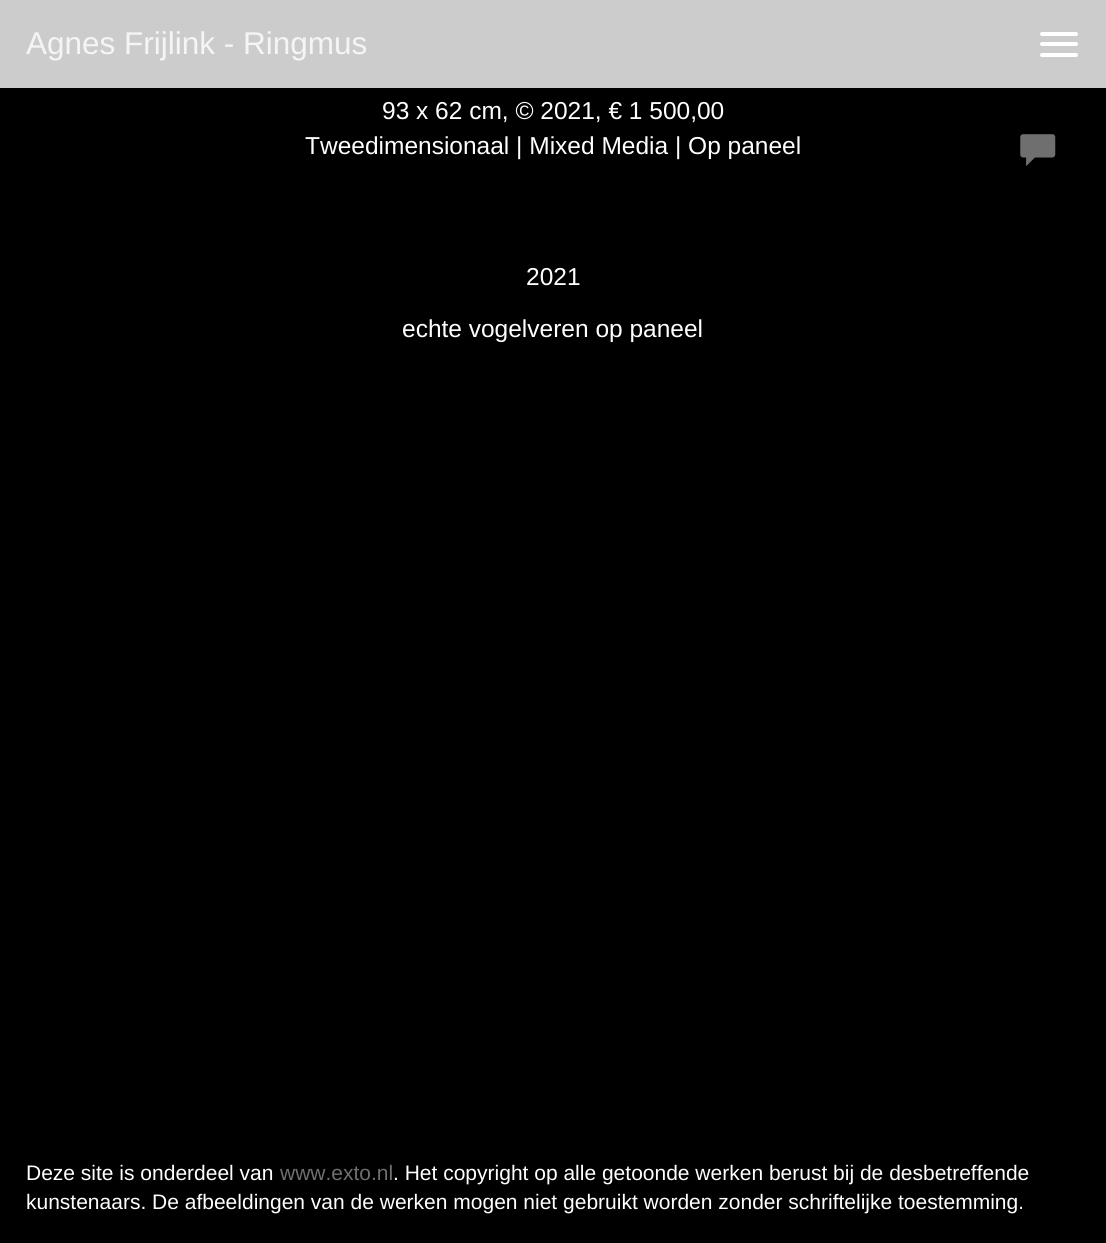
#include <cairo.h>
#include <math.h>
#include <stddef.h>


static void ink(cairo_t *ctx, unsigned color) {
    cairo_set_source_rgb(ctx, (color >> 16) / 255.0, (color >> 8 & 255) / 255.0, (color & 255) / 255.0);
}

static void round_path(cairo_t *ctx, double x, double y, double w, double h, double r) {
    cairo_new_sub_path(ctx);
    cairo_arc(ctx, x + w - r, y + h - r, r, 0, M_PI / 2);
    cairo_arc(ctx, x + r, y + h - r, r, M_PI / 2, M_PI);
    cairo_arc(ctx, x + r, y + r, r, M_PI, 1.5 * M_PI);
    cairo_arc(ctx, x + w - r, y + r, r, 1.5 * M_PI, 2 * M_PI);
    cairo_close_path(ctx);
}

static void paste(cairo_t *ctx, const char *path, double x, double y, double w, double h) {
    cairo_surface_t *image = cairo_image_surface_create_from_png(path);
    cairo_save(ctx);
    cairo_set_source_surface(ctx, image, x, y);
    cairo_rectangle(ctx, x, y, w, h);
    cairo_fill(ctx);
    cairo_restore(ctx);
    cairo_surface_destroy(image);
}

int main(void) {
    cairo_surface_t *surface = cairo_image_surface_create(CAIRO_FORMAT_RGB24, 1106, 1243);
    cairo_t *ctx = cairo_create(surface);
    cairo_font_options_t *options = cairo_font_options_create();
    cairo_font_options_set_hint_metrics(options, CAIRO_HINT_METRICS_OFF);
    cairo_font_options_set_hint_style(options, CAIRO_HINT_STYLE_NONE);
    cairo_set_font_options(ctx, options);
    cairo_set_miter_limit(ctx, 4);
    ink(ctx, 0x000000);
    cairo_paint(ctx);
    ink(ctx, 0xCCCCCC);
    cairo_rectangle(ctx, 0, 0, 1106, 88);
    cairo_fill(ctx);
    cairo_select_font_face(ctx, "Liberation Sans", CAIRO_FONT_SLANT_NORMAL, CAIRO_FONT_WEIGHT_NORMAL);
    cairo_set_font_size(ctx, 31.5);
    ink(ctx, 0xF5F5F5);
    cairo_move_to(ctx, 26, 54);
    cairo_show_text(ctx, "Agnes Frijlink - Ringmus");
    ink(ctx, 0xFFFFFF);
    round_path(ctx, 1040, 32, 38, 4, 2);
    cairo_fill(ctx);
    round_path(ctx, 1040, 42, 38, 4, 2);
    cairo_fill(ctx);
    round_path(ctx, 1040, 53, 38, 4, 2);
    cairo_fill(ctx);
    cairo_set_font_size(ctx, 24.5);
    cairo_move_to(ctx, 382, 119);
    cairo_show_text(ctx, "93 x 62 cm, © 2021, € 1 500,00");
    cairo_move_to(ctx, 305, 154);
    cairo_show_text(ctx, "Tweedimensionaal | Mixed Media | Op paneel");
    paste(ctx, "media/1.png", 1020, 134, 36, 32);
    cairo_move_to(ctx, 526, 285);
    cairo_show_text(ctx, "2021");
    cairo_move_to(ctx, 402, 337);
    cairo_show_text(ctx, "echte vogelveren op paneel");
    cairo_set_font_size(ctx, 21);
    cairo_move_to(ctx, 26, 1180);
    cairo_show_text(ctx, "Deze site is onderdeel van");
    ink(ctx, 0x6F6F6F);
    cairo_move_to(ctx, 280, 1180);
    cairo_show_text(ctx, "www.exto.nl");
    ink(ctx, 0xFFFFFF);
    cairo_move_to(ctx, 393, 1180);
    cairo_show_text(ctx, ". Het copyright op alle getoonde werken berust bij de desbetreffende");
    cairo_move_to(ctx, 26, 1209);
    cairo_show_text(ctx, "kunstenaars. De afbeeldingen van de werken mogen niet gebruikt worden zonder schriftelijke toestemming.");
    cairo_surface_write_to_png(surface, "image.png");
    cairo_font_options_destroy(options);
    cairo_destroy(ctx);
    cairo_surface_destroy(surface);
    return 0;
}
